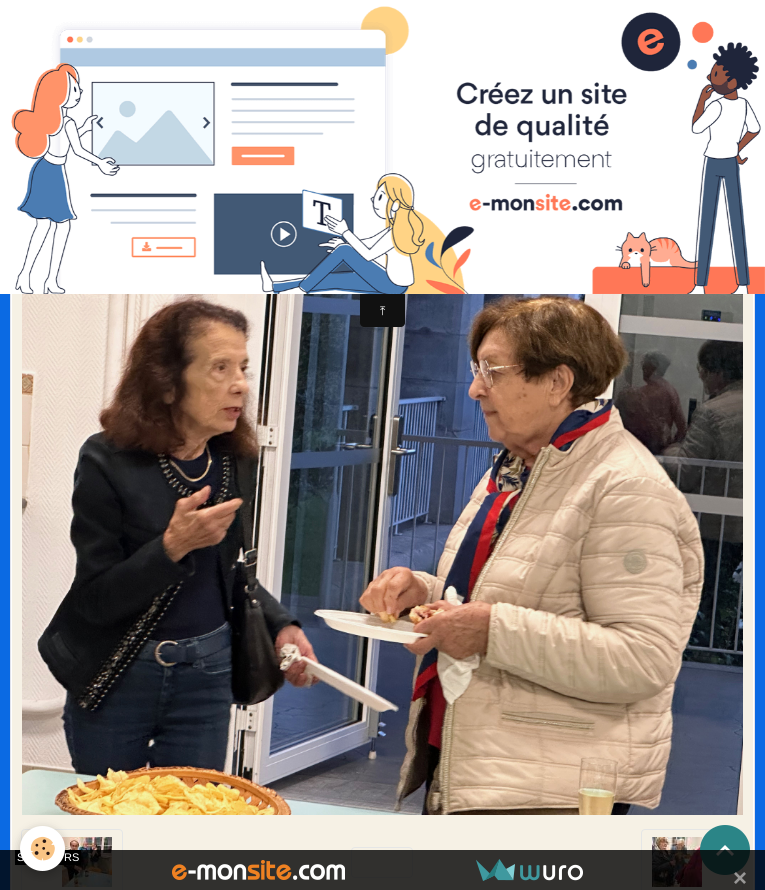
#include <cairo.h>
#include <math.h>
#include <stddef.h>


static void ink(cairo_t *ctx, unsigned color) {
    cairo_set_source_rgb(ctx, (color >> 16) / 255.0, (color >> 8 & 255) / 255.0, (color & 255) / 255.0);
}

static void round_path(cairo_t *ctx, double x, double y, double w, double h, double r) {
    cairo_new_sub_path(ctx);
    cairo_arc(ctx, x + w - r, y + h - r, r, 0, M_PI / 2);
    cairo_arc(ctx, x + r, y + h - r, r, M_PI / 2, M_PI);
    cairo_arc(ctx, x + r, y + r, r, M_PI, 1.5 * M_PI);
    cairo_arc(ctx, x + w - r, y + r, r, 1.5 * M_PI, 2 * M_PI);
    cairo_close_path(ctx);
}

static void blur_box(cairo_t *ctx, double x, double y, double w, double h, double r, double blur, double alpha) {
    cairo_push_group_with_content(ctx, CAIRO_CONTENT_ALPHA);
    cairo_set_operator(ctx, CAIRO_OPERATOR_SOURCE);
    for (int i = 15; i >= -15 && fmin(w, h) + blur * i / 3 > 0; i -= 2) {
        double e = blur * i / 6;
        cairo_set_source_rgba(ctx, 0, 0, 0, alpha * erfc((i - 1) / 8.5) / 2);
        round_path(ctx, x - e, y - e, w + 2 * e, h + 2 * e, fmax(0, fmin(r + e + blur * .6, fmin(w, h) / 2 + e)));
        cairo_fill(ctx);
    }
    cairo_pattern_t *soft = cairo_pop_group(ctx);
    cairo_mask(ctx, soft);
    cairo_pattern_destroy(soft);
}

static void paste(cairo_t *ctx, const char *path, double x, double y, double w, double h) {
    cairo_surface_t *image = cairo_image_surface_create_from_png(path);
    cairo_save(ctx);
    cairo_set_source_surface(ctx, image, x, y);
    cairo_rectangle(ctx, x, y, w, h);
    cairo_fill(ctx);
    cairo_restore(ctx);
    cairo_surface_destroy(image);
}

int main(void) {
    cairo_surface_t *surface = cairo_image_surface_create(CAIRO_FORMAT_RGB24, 765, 890);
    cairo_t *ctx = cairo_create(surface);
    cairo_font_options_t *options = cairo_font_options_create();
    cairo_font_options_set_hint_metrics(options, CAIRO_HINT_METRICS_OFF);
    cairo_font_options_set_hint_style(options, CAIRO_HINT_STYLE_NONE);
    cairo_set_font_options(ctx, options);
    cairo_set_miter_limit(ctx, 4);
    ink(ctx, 0x0B6AE3);
    cairo_paint(ctx);
    ink(ctx, 0xF6F1E5);
    cairo_rectangle(ctx, 12, 294, 741, 596);
    cairo_fill(ctx);
    cairo_rectangle(ctx, 10.5, 210.5, 744, 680);
    ink(ctx, 0xE0E2EB);
    cairo_set_line_width(ctx, 1);
    cairo_stroke(ctx);
    cairo_rectangle(ctx, 11.5, 211.5, 742, 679);
    ink(ctx, 0xFFFFFF);
    cairo_stroke(ctx);
    paste(ctx, "media/1.png", 22, 294, 721, 521);
    round_path(ctx, 21.5, 829.5, 101, 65, 3.5);
    ink(ctx, 0xE5E6E6);
    cairo_stroke(ctx);
    paste(ctx, "media/2.png", 62, 837, 50, 50);
    round_path(ctx, 351.5, 847.5, 61, 30, 3.5);
    cairo_stroke(ctx);
    round_path(ctx, 641.5, 829.5, 101, 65, 3.5);
    cairo_stroke(ctx);
    paste(ctx, "media/3.png", 652, 837, 50, 50);
    ink(ctx, 0xFFFFFF);
    cairo_rectangle(ctx, 0, 0, 765, 294);
    cairo_fill(ctx);
    paste(ctx, "media/4.png", 11, 6, 754, 288);
    ink(ctx, 0x111111);
    cairo_new_path(ctx);
    cairo_move_to(ctx, 360, 294);
    cairo_line_to(ctx, 405, 294);
    cairo_line_to(ctx, 405, 323);
    cairo_curve_to(ctx, 405, 325, 403, 327, 401, 327);
    cairo_line_to(ctx, 364, 327);
    cairo_curve_to(ctx, 362, 327, 360, 325, 360, 323);
    cairo_close_path(ctx);
    cairo_fill(ctx);
    cairo_select_font_face(ctx, "FreeSerif", CAIRO_FONT_SLANT_NORMAL, CAIRO_FONT_WEIGHT_NORMAL);
    cairo_set_font_size(ctx, 12);
    ink(ctx, 0xFFFFFF);
    cairo_move_to(ctx, 380, 315);
    cairo_show_text(ctx, "⤒");
    ink(ctx, 0x2B8587);
    cairo_new_path(ctx);
    cairo_arc(ctx, 725, 850, 25, 0, 2 * M_PI);
    cairo_fill(ctx);
    ink(ctx, 0xFFFFFF);
    cairo_new_path(ctx);
    cairo_move_to(ctx, 725, 845);
    cairo_line_to(ctx, 734, 854);
    cairo_line_to(ctx, 732, 856);
    cairo_line_to(ctx, 725, 849);
    cairo_line_to(ctx, 718, 856);
    cairo_line_to(ctx, 716, 854);
    cairo_close_path(ctx);
    cairo_fill(ctx);
    cairo_set_source_rgba(ctx, 0, 0, 0, 0.8);
    cairo_rectangle(ctx, 0, 850, 765, 40);
    cairo_fill(ctx);
    ink(ctx, 0x000000);
    cairo_rectangle(ctx, 15, 850, 66, 15);
    cairo_fill(ctx);
    ink(ctx, 0x000000);
    blur_box(ctx, 20, 829, 45, 45, 22.5, 5, 0.24);
    ink(ctx, 0xFFFFFF);
    cairo_arc(ctx, 42.5, 848.5, 22.5, 0, 2 * M_PI);
    cairo_fill(ctx);
    paste(ctx, "media/5.png", 30, 836, 25, 25);
    cairo_select_font_face(ctx, "Liberation Sans", CAIRO_FONT_SLANT_NORMAL, CAIRO_FONT_WEIGHT_NORMAL);
    cairo_set_font_size(ctx, 11);
    cairo_move_to(ctx, 17, 861);
    cairo_show_text(ctx, "S");
    cairo_move_to(ctx, 64, 861);
    cairo_show_text(ctx, "RS");
    paste(ctx, "media/6.png", 172, 860, 173, 20);
    paste(ctx, "media/7.png", 476, 859, 107, 22);
    cairo_select_font_face(ctx, "Liberation Sans", CAIRO_FONT_SLANT_NORMAL, CAIRO_FONT_WEIGHT_BOLD);
    cairo_set_font_size(ctx, 24);
    ink(ctx, 0x989796);
    cairo_move_to(ctx, 733, 886);
    cairo_show_text(ctx, "×");
    cairo_surface_write_to_png(surface, "image.png");
    cairo_font_options_destroy(options);
    cairo_destroy(ctx);
    cairo_surface_destroy(surface);
    return 0;
}
